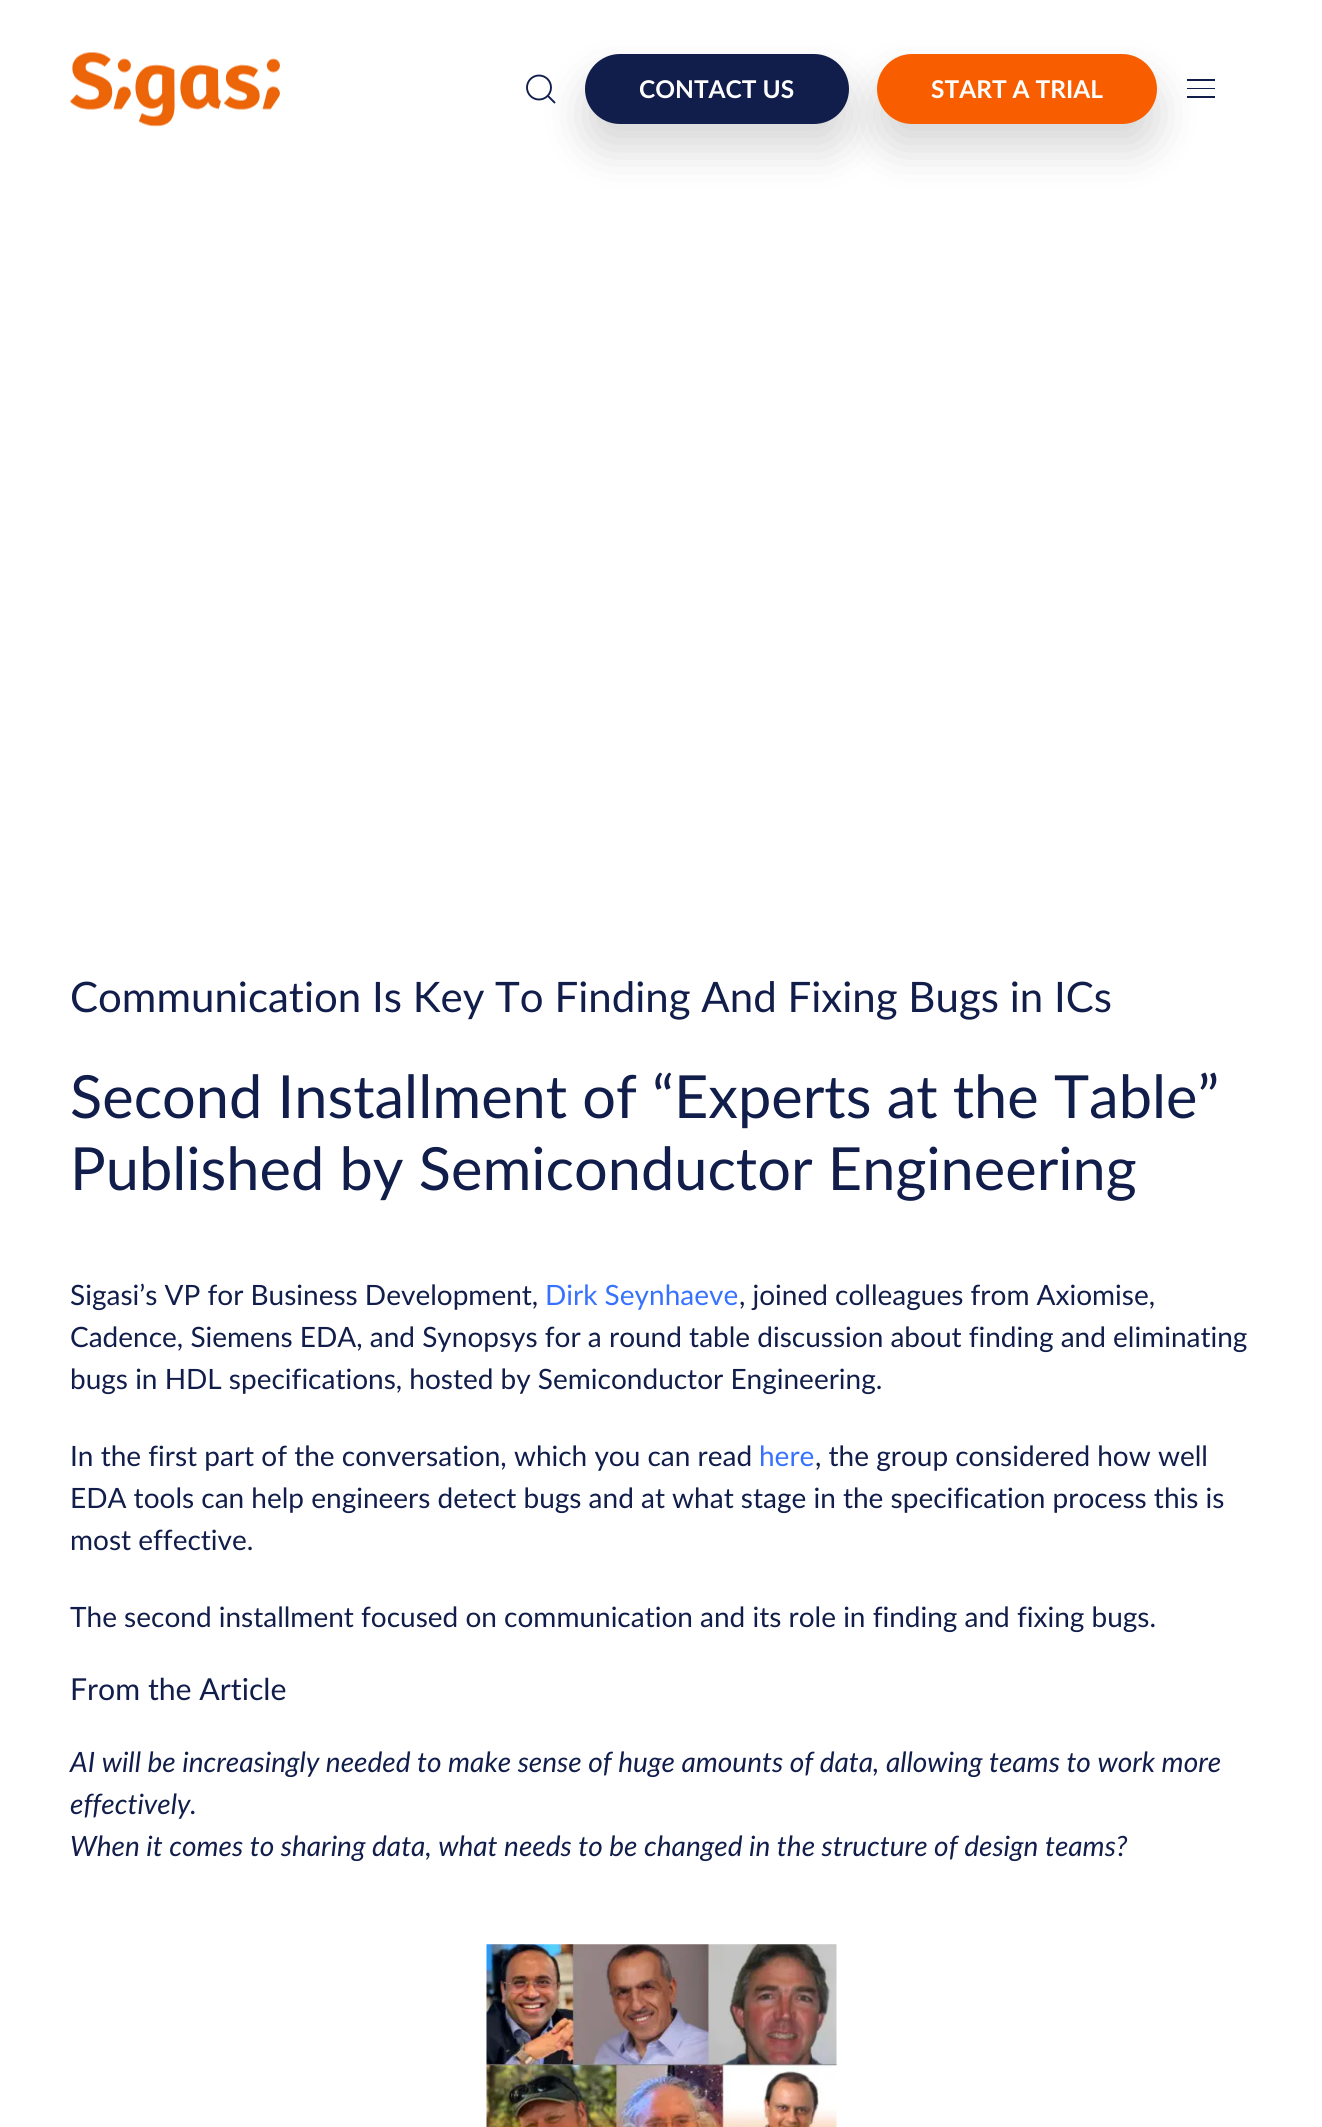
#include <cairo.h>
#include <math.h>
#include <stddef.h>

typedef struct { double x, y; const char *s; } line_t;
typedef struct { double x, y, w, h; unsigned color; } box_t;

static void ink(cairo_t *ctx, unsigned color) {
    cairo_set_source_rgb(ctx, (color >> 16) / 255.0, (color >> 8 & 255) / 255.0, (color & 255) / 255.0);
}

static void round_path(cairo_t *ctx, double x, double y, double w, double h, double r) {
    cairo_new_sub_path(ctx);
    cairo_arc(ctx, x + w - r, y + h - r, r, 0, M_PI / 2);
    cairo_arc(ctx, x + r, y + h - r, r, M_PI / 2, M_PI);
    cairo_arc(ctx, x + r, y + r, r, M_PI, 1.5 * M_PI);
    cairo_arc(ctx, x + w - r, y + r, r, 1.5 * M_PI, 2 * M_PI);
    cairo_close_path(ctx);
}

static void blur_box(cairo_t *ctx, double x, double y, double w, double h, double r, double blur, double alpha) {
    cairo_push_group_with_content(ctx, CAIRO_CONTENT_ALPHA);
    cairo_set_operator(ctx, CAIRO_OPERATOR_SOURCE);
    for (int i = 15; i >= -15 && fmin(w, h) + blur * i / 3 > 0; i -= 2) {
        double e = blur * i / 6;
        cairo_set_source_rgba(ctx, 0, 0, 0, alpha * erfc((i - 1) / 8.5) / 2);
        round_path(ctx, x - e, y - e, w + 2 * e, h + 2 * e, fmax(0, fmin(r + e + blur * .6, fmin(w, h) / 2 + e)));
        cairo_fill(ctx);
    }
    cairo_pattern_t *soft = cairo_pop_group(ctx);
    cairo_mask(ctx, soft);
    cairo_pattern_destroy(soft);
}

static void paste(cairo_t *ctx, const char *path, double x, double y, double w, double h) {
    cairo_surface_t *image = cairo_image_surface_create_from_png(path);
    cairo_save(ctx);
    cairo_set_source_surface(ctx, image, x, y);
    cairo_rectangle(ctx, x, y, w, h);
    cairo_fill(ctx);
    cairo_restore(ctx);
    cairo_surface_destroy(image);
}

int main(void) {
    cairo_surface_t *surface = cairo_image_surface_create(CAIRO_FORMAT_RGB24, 1322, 2127);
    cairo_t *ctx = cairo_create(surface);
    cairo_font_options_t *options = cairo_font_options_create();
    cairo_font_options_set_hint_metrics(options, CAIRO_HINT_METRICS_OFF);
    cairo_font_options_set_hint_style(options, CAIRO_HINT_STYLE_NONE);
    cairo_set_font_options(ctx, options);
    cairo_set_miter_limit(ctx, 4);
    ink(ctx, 0xFFFFFF);
    cairo_paint(ctx);
    paste(ctx, "media/1.png", 70, 52, 210, 75);
    ink(ctx, 0x000000);
    blur_box(ctx, 585, 79, 264, 70, 35, 22, 0.16);
    cairo_arc(ctx, 539, 87.5, 12, 0, 2 * M_PI);
    ink(ctx, 0x111D4A);
    cairo_set_line_width(ctx, 1.9);
    cairo_stroke(ctx);
    cairo_new_path(ctx);
    cairo_move_to(ctx, 548, 96);
    cairo_line_to(ctx, 555, 103);
    cairo_close_path(ctx);
    cairo_stroke(ctx);
    round_path(ctx, 585, 54, 264, 70, 35);
    cairo_fill(ctx);
    cairo_select_font_face(ctx, "Lato", CAIRO_FONT_SLANT_NORMAL, CAIRO_FONT_WEIGHT_BOLD);
    cairo_set_font_size(ctx, 24.5);
    ink(ctx, 0xFFFFFF);
    cairo_move_to(ctx, 639, 98);
    cairo_show_text(ctx, "CONTACT US");
    ink(ctx, 0x000000);
    blur_box(ctx, 877, 79, 280, 70, 35, 22, 0.16);
    ink(ctx, 0xF85E00);
    round_path(ctx, 877, 54, 280, 70, 35);
    cairo_fill(ctx);
    ink(ctx, 0xFFFFFF);
    cairo_move_to(ctx, 931, 98);
    cairo_show_text(ctx, "START A TRIAL");
    {
        static const box_t items[] = {
            {1187, 79, 28, 2, 0x111D4A},
            {1187, 88, 28, 1, 0x111D4A},
            {1187, 96, 28, 2, 0x111D4A},
        };
        for (size_t i = 0; i < sizeof items / sizeof *items; i++) {
            ink(ctx, items[i].color);
            cairo_rectangle(ctx, items[i].x, items[i].y, items[i].w, items[i].h);
            cairo_fill(ctx);
        }
    }
    cairo_select_font_face(ctx, "Lato", CAIRO_FONT_SLANT_NORMAL, CAIRO_FONT_WEIGHT_NORMAL);
    cairo_set_font_size(ctx, 42);
    cairo_move_to(ctx, 70, 1012);
    cairo_show_text(ctx, "Communication Is Key To Finding And Fixing Bugs in ICs");
    cairo_set_font_size(ctx, 59.5);
    cairo_move_to(ctx, 70, 1118);
    cairo_show_text(ctx, "Second Installment of “Experts at the Table”");
    cairo_move_to(ctx, 70, 1190);
    cairo_show_text(ctx, "Published by Semiconductor Engineering");
    cairo_set_font_size(ctx, 28);
    cairo_move_to(ctx, 70, 1305);
    cairo_show_text(ctx, "Sigasi’s VP for Business Development,");
    ink(ctx, 0x3772FF);
    cairo_move_to(ctx, 545, 1305);
    cairo_show_text(ctx, "Dirk Seynhaeve");
    ink(ctx, 0x111D4A);
    {
        static const line_t items[] = {
            {739, 1305, ", joined colleagues from Axiomise,"},
            {70, 1347, "Cadence, Siemens EDA, and Synopsys for a round table discussion about finding and eliminating"},
            {70, 1389, "bugs in HDL specifications, hosted by Semiconductor Engineering."},
            {70, 1466, "In the first part of the conversation, which you can read"},
        };
        for (size_t i = 0; i < sizeof items / sizeof *items; i++) {
            cairo_move_to(ctx, items[i].x, items[i].y);
            cairo_show_text(ctx, items[i].s);
        }
    }
    ink(ctx, 0x3772FF);
    cairo_move_to(ctx, 759, 1466);
    cairo_show_text(ctx, "here");
    ink(ctx, 0x111D4A);
    {
        static const line_t items[] = {
            {815, 1466, ", the group considered how well"},
            {70, 1508, "EDA tools can help engineers detect bugs and at what stage in the specification process this is"},
            {70, 1550, "most effective."},
            {70, 1627, "The second installment focused on communication and its role in finding and fixing bugs."},
        };
        for (size_t i = 0; i < sizeof items / sizeof *items; i++) {
            cairo_move_to(ctx, items[i].x, items[i].y);
            cairo_show_text(ctx, items[i].s);
        }
    }
    cairo_set_font_size(ctx, 30.25);
    cairo_move_to(ctx, 70, 1700);
    cairo_show_text(ctx, "From the Article");
    cairo_select_font_face(ctx, "Lato", CAIRO_FONT_SLANT_ITALIC, CAIRO_FONT_WEIGHT_NORMAL);
    cairo_set_font_size(ctx, 28);
    {
        static const line_t items[] = {
            {70, 1772, "AI will be increasingly needed to make sense of huge amounts of data, allowing teams to work more"},
            {70, 1814, "effectively."},
            {70, 1856, "When it comes to sharing data, what needs to be changed in the structure of design teams?"},
        };
        for (size_t i = 0; i < sizeof items / sizeof *items; i++) {
            cairo_move_to(ctx, items[i].x, items[i].y);
            cairo_show_text(ctx, items[i].s);
        }
    }
    paste(ctx, "media/2.png", 486, 1944, 351, 183);
    cairo_surface_write_to_png(surface, "image.png");
    cairo_font_options_destroy(options);
    cairo_destroy(ctx);
    cairo_surface_destroy(surface);
    return 0;
}
